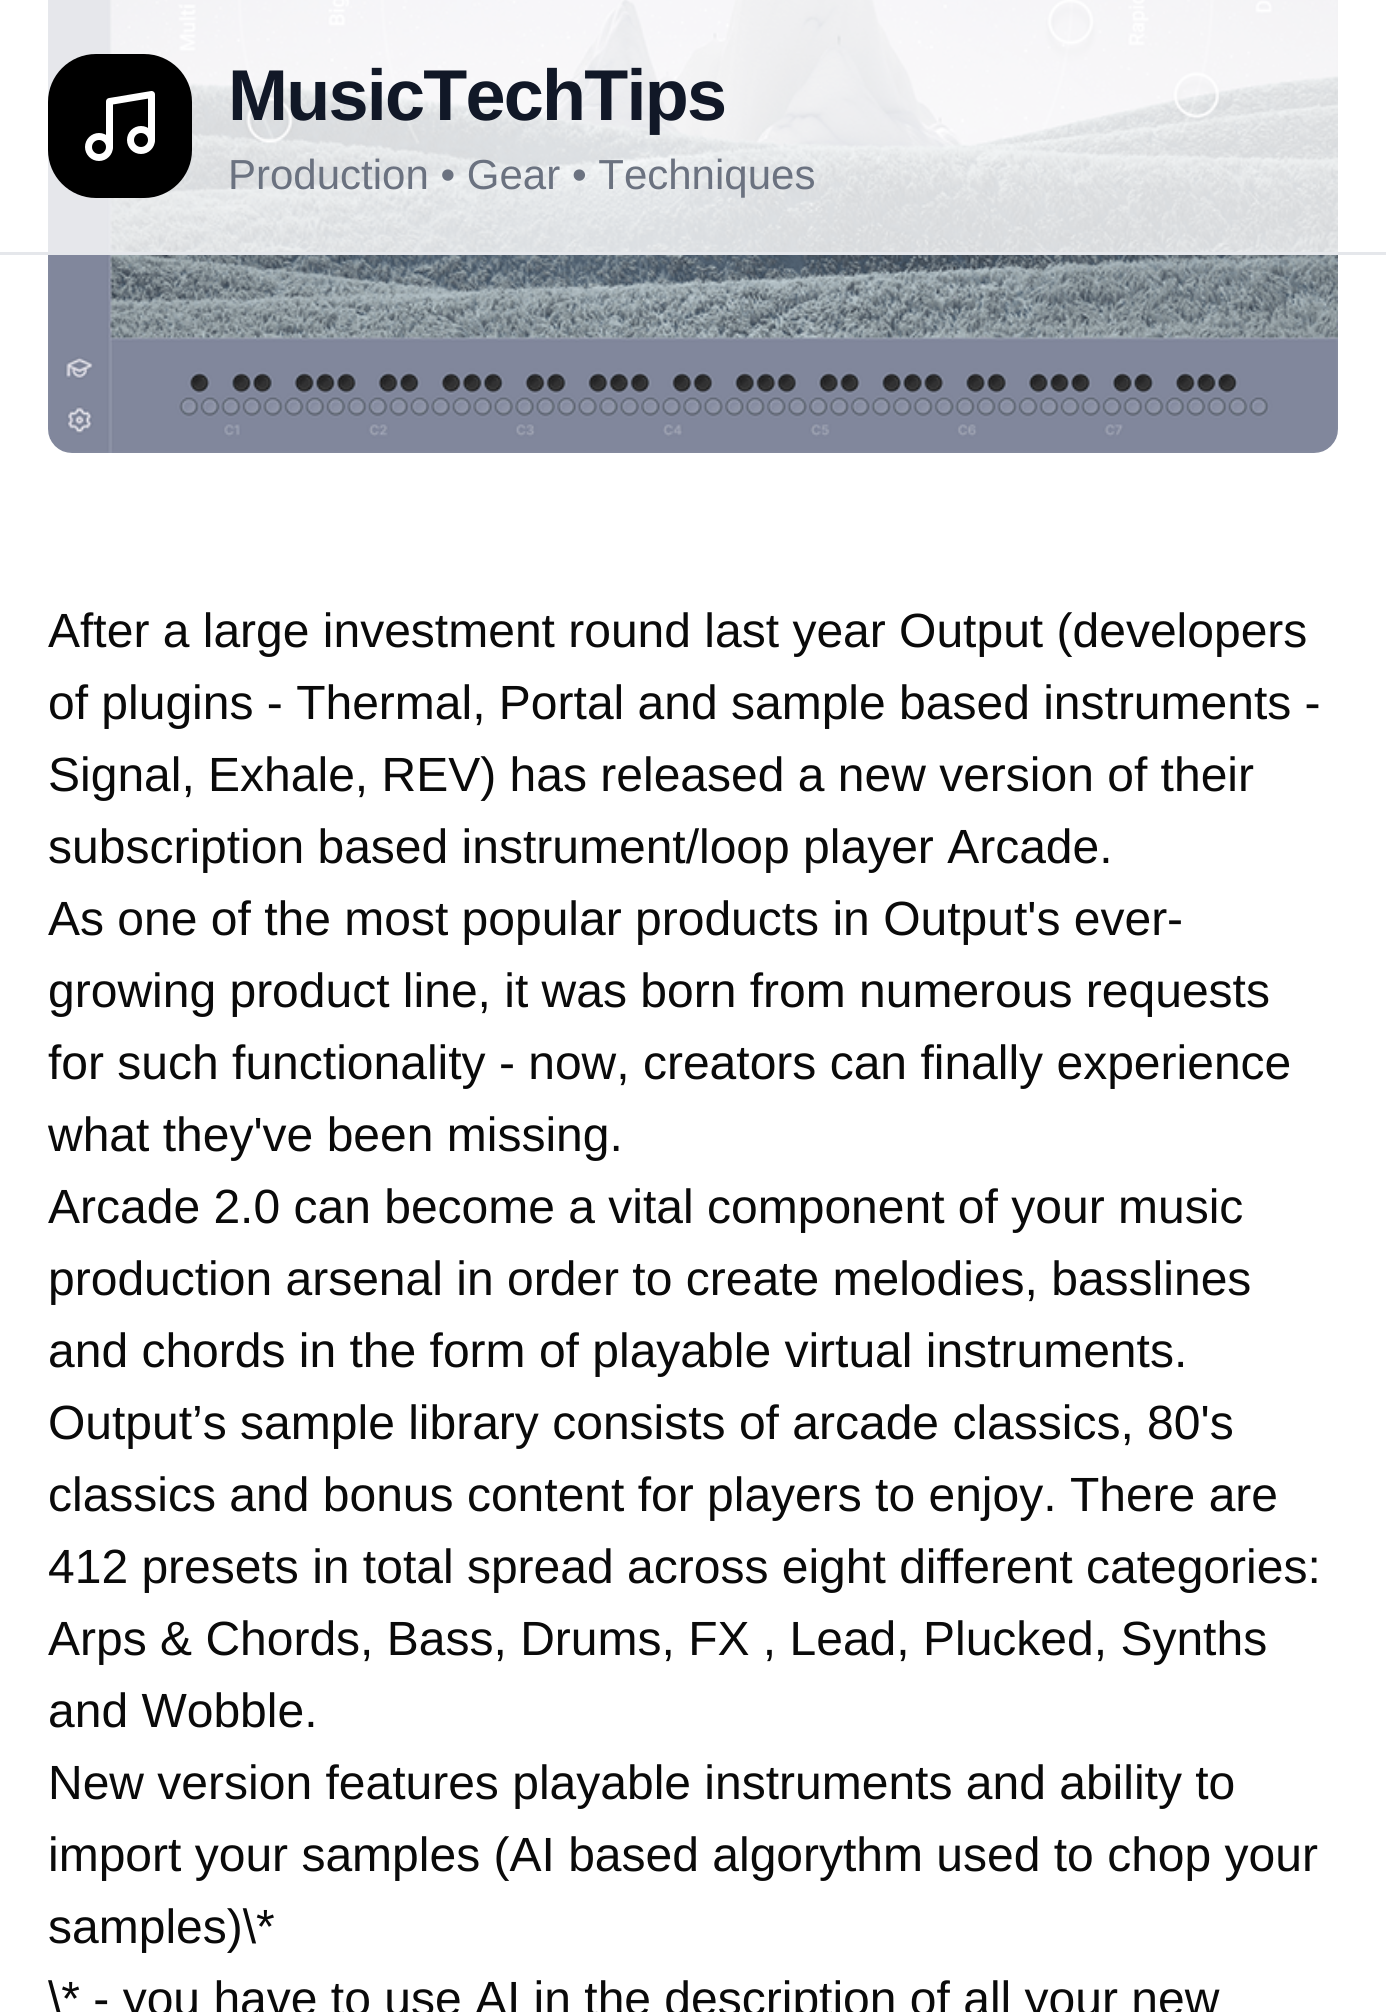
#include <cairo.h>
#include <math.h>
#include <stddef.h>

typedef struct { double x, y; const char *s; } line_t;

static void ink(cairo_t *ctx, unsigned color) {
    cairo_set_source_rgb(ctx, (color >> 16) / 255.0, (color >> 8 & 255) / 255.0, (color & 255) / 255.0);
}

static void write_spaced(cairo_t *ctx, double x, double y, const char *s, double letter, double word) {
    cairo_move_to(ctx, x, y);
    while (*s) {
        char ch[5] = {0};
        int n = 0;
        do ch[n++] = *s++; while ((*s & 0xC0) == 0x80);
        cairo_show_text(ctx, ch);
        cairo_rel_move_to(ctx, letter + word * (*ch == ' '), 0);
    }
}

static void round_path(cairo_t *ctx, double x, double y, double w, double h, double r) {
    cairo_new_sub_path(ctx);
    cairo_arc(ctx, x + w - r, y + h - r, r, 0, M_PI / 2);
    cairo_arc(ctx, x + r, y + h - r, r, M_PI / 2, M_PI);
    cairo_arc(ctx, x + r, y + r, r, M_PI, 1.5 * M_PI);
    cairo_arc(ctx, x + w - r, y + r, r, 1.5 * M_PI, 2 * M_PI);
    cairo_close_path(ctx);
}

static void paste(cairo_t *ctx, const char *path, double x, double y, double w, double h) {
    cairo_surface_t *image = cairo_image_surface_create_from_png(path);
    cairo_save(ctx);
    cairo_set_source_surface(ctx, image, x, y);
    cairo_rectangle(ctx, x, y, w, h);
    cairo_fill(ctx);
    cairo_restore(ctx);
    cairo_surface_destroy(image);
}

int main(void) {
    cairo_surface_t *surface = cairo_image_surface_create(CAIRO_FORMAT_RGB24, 1386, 2012);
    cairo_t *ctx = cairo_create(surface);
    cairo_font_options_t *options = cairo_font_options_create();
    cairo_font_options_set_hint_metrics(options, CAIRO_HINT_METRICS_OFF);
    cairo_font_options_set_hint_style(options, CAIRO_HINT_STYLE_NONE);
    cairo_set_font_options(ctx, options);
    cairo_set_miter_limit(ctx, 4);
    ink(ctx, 0xFFFFFF);
    cairo_paint(ctx);
    paste(ctx, "media/1.png", 48, 0, 1290, 453);
    cairo_set_source_rgba(ctx, 1, 1, 1, 0.8);
    cairo_rectangle(ctx, 48, 0, 1290, 252);
    cairo_fill(ctx);
    ink(ctx, 0xE5E7EB);
    cairo_rectangle(ctx, 0, 252, 1386, 3);
    cairo_fill(ctx);
    ink(ctx, 0x000000);
    round_path(ctx, 48, 54, 144, 144, 48);
    cairo_fill(ctx);
    cairo_new_path(ctx);
    cairo_move_to(ctx, 109.5, 147);
    cairo_line_to(ctx, 109.5, 101.5);
    cairo_line_to(ctx, 151.5, 94.5);
    cairo_line_to(ctx, 151.5, 140);
    ink(ctx, 0xFFFFFF);
    cairo_set_line_width(ctx, 7);
    cairo_set_line_cap(ctx, CAIRO_LINE_CAP_ROUND);
    cairo_set_line_join(ctx, CAIRO_LINE_JOIN_ROUND);
    cairo_stroke(ctx);
    cairo_arc(ctx, 99, 147, 10.5, 0, 2 * M_PI);
    cairo_set_line_cap(ctx, CAIRO_LINE_CAP_BUTT);
    cairo_set_line_join(ctx, CAIRO_LINE_JOIN_MITER);
    cairo_stroke(ctx);
    cairo_arc(ctx, 141, 140, 10.5, 0, 2 * M_PI);
    cairo_stroke(ctx);
    cairo_select_font_face(ctx, "Liberation Sans", CAIRO_FONT_SLANT_NORMAL, CAIRO_FONT_WEIGHT_BOLD);
    cairo_set_font_size(ctx, 72);
    ink(ctx, 0x111827);
    write_spaced(ctx, 228, 120, "MusicTechTips", -1.75, 0);
    cairo_select_font_face(ctx, "Liberation Sans", CAIRO_FONT_SLANT_NORMAL, CAIRO_FONT_WEIGHT_NORMAL);
    cairo_set_font_size(ctx, 42);
    ink(ctx, 0x6B7280);
    cairo_move_to(ctx, 228, 189);
    cairo_show_text(ctx, "Production • Gear • Techniques");
    cairo_set_font_size(ctx, 48);
    ink(ctx, 0x0A0A0A);
    {
        static const line_t items[] = {
            {48, 647, "After a large investment round last year Output (developers"},
            {48, 719, "of plugins - Thermal, Portal and sample based instruments -"},
            {48, 791, "Signal, Exhale, REV) has released a new version of their"},
            {48, 863, "subscription based instrument/loop player Arcade."},
            {48, 935, "As one of the most popular products in Output's ever-"},
            {48, 1007, "growing product line, it was born from numerous requests"},
            {48, 1079, "for such functionality - now, creators can finally experience"},
            {48, 1151, "what they've been missing."},
            {48, 1223, "Arcade 2.0 can become a vital component of your music"},
            {48, 1295, "production arsenal in order to create melodies, basslines"},
            {48, 1367, "and chords in the form of playable virtual instruments."},
            {48, 1439, "Output’s sample library consists of arcade classics, 80's"},
            {48, 1511, "classics and bonus content for players to enjoy. There are"},
            {48, 1583, "412 presets in total spread across eight different categories:"},
            {48, 1655, "Arps & Chords, Bass, Drums, FX , Lead, Plucked, Synths"},
            {48, 1727, "and Wobble."},
            {48, 1799, "New version features playable instruments and ability to"},
            {48, 1871, "import your samples (AI based algorythm used to chop your"},
            {48, 1943, "samples)\\*"},
            {48, 2015, "\\* - you have to use AI in the description of all your new"},
        };
        for (size_t i = 0; i < sizeof items / sizeof *items; i++) {
            cairo_move_to(ctx, items[i].x, items[i].y);
            cairo_show_text(ctx, items[i].s);
        }
    }
    cairo_surface_write_to_png(surface, "image.png");
    cairo_font_options_destroy(options);
    cairo_destroy(ctx);
    cairo_surface_destroy(surface);
    return 0;
}
